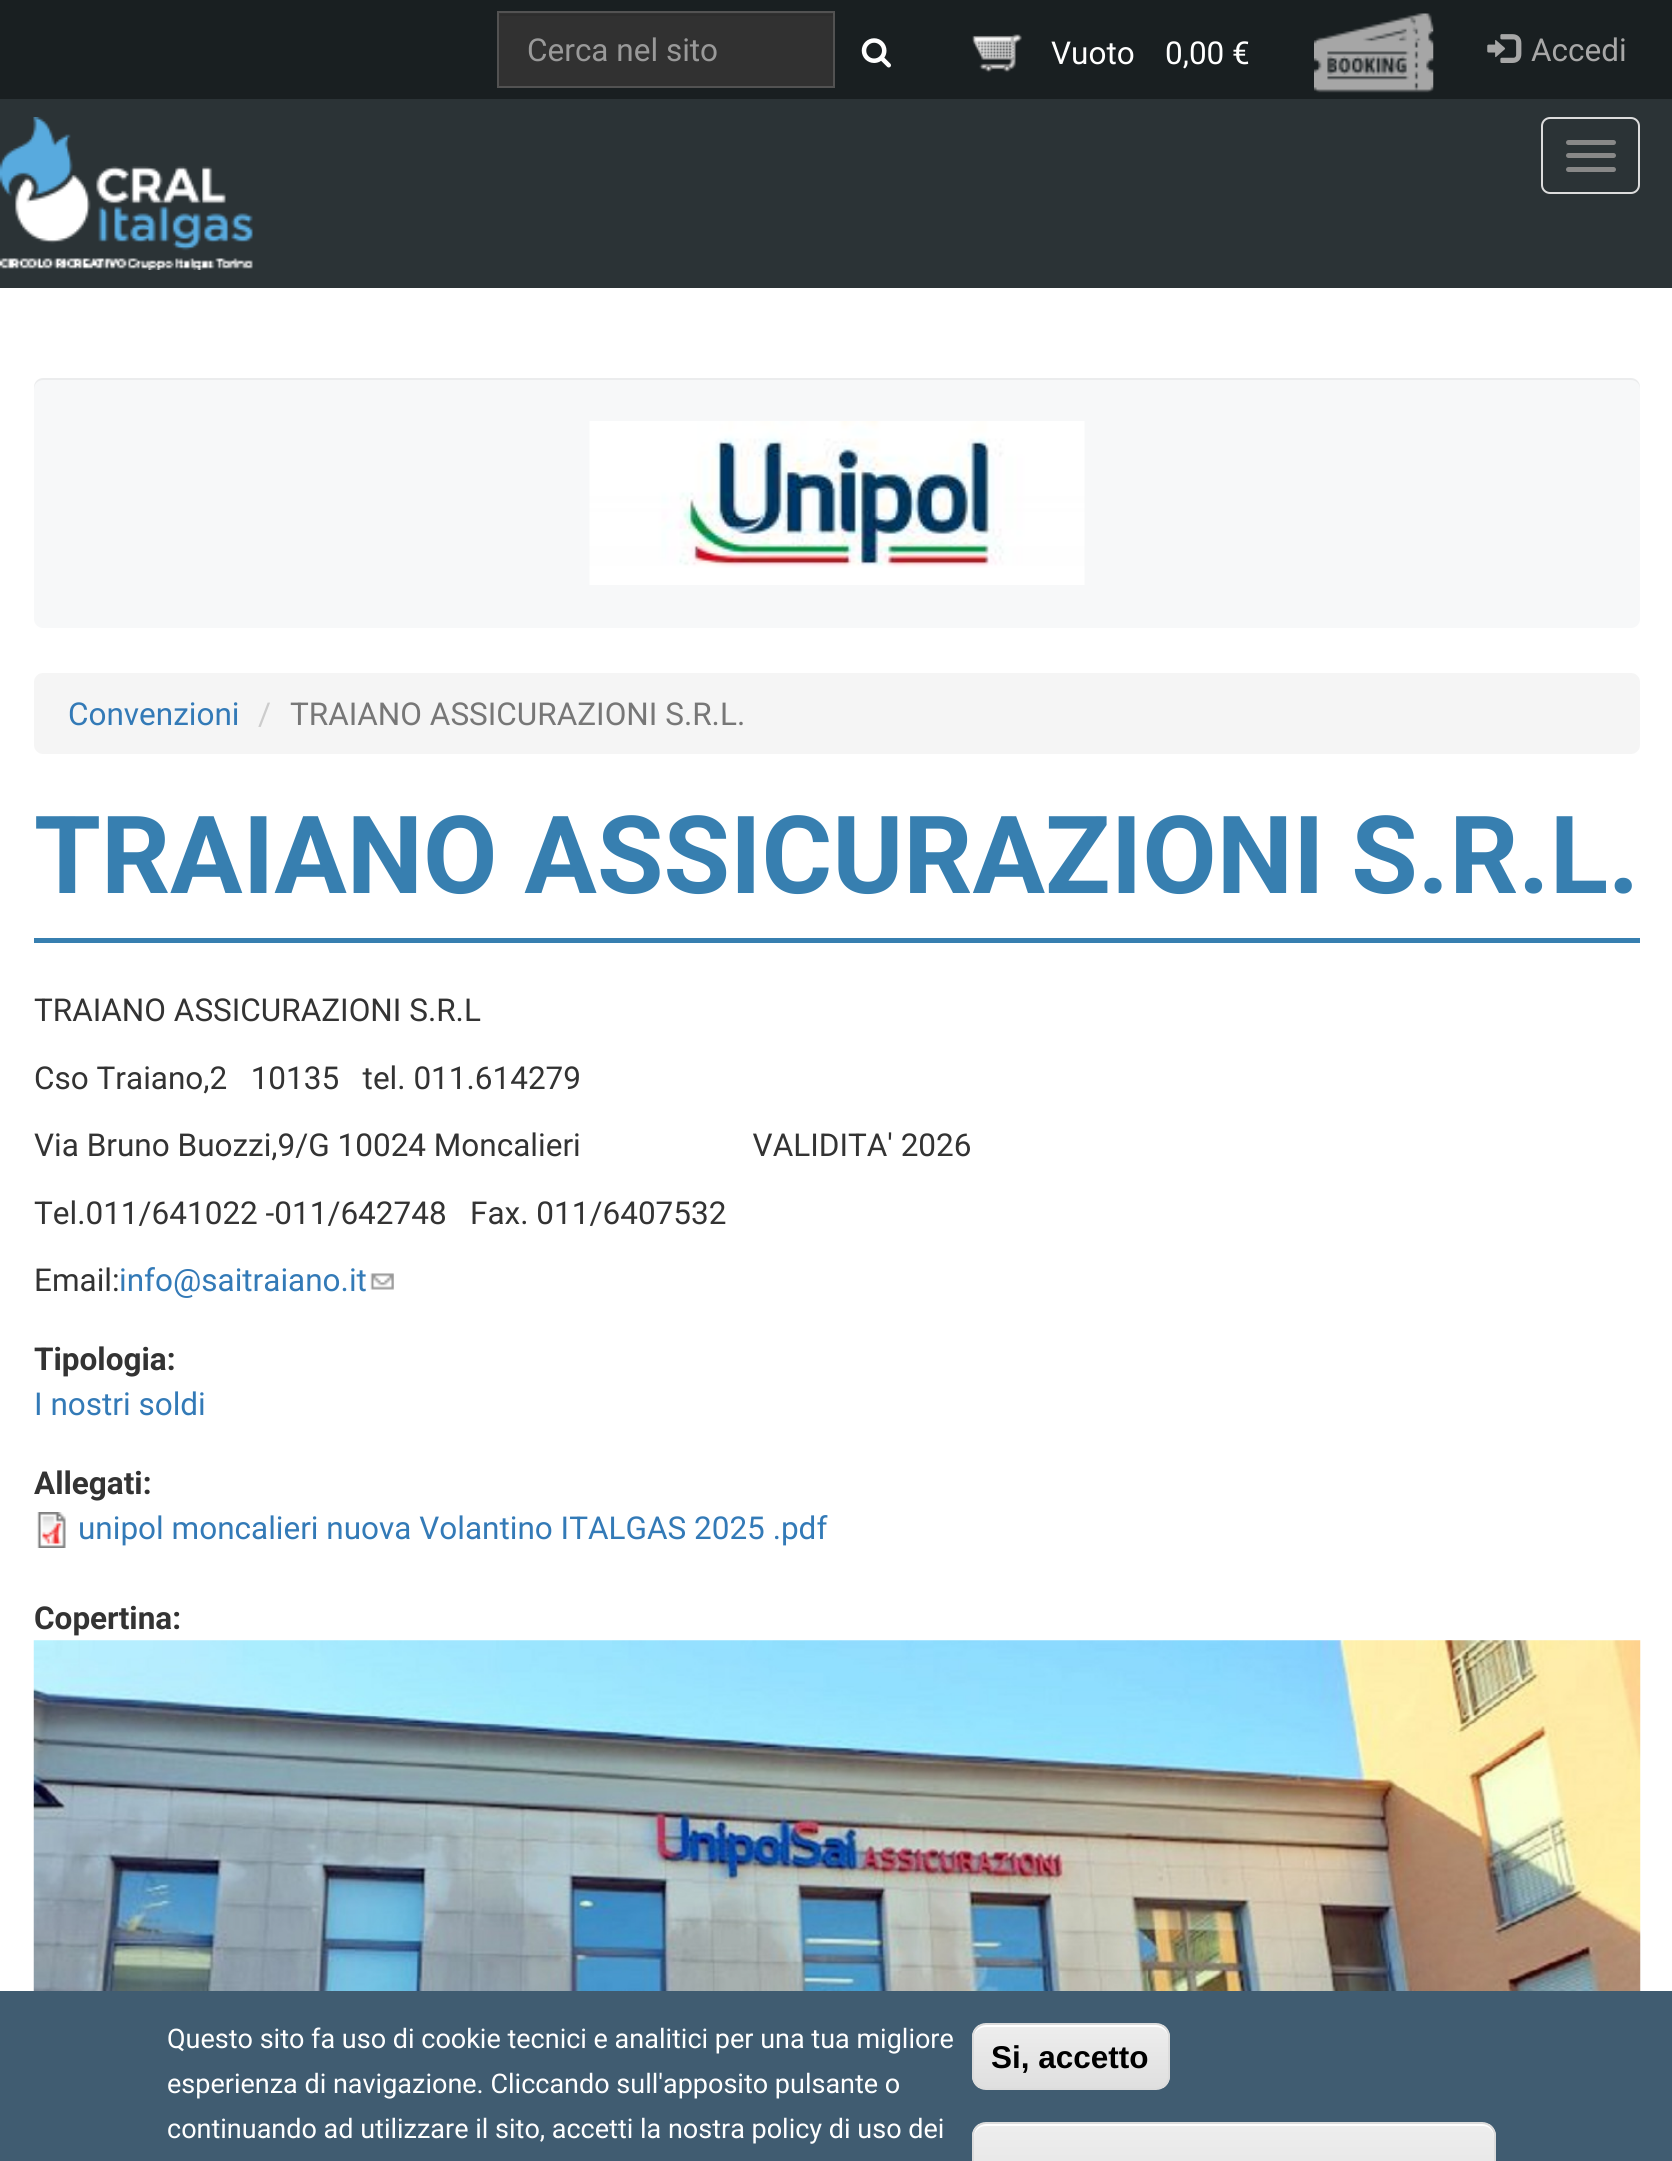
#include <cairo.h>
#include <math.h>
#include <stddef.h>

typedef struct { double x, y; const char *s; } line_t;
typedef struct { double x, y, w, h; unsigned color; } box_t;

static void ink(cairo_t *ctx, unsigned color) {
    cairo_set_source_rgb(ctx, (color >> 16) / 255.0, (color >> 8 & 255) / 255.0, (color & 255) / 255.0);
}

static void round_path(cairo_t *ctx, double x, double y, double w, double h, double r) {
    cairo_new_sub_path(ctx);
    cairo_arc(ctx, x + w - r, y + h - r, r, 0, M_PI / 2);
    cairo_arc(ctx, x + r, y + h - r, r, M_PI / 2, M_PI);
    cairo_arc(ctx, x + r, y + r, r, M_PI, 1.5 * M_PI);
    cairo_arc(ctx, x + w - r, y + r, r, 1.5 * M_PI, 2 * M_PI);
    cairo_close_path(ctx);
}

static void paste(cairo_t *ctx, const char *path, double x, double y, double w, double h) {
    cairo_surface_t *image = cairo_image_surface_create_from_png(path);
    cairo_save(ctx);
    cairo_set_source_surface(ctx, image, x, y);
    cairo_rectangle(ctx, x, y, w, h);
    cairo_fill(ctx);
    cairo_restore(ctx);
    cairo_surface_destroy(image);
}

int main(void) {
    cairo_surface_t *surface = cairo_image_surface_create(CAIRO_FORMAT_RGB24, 1672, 2161);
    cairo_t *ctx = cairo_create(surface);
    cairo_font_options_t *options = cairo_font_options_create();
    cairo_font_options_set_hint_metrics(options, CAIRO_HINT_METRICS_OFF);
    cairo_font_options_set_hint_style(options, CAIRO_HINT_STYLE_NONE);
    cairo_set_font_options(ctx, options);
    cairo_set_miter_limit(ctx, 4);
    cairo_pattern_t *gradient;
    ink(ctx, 0xFFFFFF);
    cairo_paint(ctx);
    {
        static const box_t items[] = {
            {0, 99, 1672, 189, 0x2B3336},
            {0, 0, 1672, 99, 0x191F21},
            {499, 13, 334, 73, 0x313131},
            {500, 14, 333, 2, 0x2D2D2D},
        };
        for (size_t i = 0; i < sizeof items / sizeof *items; i++) {
            ink(ctx, items[i].color);
            cairo_rectangle(ctx, items[i].x, items[i].y, items[i].w, items[i].h);
            cairo_fill(ctx);
        }
    }
    cairo_rectangle(ctx, 498, 12, 336, 75);
    ink(ctx, 0x525252);
    cairo_stroke(ctx);
    cairo_select_font_face(ctx, "Roboto", CAIRO_FONT_SLANT_NORMAL, CAIRO_FONT_WEIGHT_NORMAL);
    cairo_set_font_size(ctx, 31.5);
    ink(ctx, 0x999999);
    cairo_move_to(ctx, 527, 61);
    cairo_show_text(ctx, "Cerca nel sito");
    paste(ctx, "media/1.png", 861, 38, 30, 30);
    paste(ctx, "media/2.png", 972, 34, 50, 39);
    ink(ctx, 0xFFFFFF);
    cairo_move_to(ctx, 1051, 64);
    cairo_show_text(ctx, "Vuoto");
    cairo_move_to(ctx, 1165, 64);
    cairo_show_text(ctx, "0,00 €");
    paste(ctx, "media/3.png", 1314, 13, 120, 80);
    paste(ctx, "media/4.png", 1487, 34, 35, 29);
    ink(ctx, 0xA7A7A7);
    cairo_move_to(ctx, 1531, 61);
    cairo_show_text(ctx, "Accedi");
    paste(ctx, "media/5.png", 0, 117, 253, 153);
    round_path(ctx, 1542, 118, 97, 75, 8);
    ink(ctx, 0xDDDDDD);
    cairo_stroke(ctx);
    ink(ctx, 0x888888);
    round_path(ctx, 1566, 140, 50, 5, 2.5);
    cairo_fill(ctx);
    round_path(ctx, 1566, 153, 50, 5, 2.5);
    cairo_fill(ctx);
    round_path(ctx, 1566, 167, 50, 5, 2.5);
    cairo_fill(ctx);
    ink(ctx, 0xF7F8F9);
    round_path(ctx, 34, 378, 1606, 250, 9);
    cairo_fill(ctx);
    cairo_set_source_rgba(ctx, 0, 0, 0, 0.05);
    cairo_new_path(ctx);
    cairo_move_to(ctx, 43, 380);
    cairo_line_to(ctx, 1631, 380);
    cairo_curve_to(ctx, 1636, 380, 1640, 384, 1640, 389);
    cairo_line_to(ctx, 1640, 387);
    cairo_curve_to(ctx, 1640, 382, 1636, 378, 1631, 378);
    cairo_line_to(ctx, 43, 378);
    cairo_curve_to(ctx, 38, 378, 34, 382, 34, 387);
    cairo_line_to(ctx, 34, 389);
    cairo_curve_to(ctx, 34, 384, 38, 380, 43, 380);
    cairo_close_path(ctx);
    cairo_fill(ctx);
    paste(ctx, "media/6.png", 589, 421, 496, 164);
    ink(ctx, 0xF5F5F5);
    round_path(ctx, 34, 673, 1606, 81, 9);
    cairo_fill(ctx);
    ink(ctx, 0x337AB7);
    cairo_move_to(ctx, 68, 725);
    cairo_show_text(ctx, "Convenzioni");
    ink(ctx, 0xCCCCCC);
    cairo_move_to(ctx, 258, 725);
    cairo_show_text(ctx, "/");
    ink(ctx, 0x777777);
    cairo_move_to(ctx, 290, 725);
    cairo_show_text(ctx, "TRAIANO ASSICURAZIONI S.R.L.");
    ink(ctx, 0x377FB0);
    cairo_rectangle(ctx, 34, 938, 1606, 5);
    cairo_fill(ctx);
    cairo_select_font_face(ctx, "Roboto", CAIRO_FONT_SLANT_NORMAL, CAIRO_FONT_WEIGHT_BOLD);
    cairo_set_font_size(ctx, 108);
    cairo_move_to(ctx, 34, 893);
    cairo_show_text(ctx, "TRAIANO ASSICURAZIONI S.R.L.");
    cairo_select_font_face(ctx, "Roboto", CAIRO_FONT_SLANT_NORMAL, CAIRO_FONT_WEIGHT_NORMAL);
    cairo_set_font_size(ctx, 31.5);
    ink(ctx, 0x333333);
    {
        static const line_t items[] = {
            {34, 1021, "TRAIANO ASSICURAZIONI S.R.L"},
            {34, 1089, "Cso Traiano,2   10135   tel. 011.614279"},
            {34, 1156, "Via Bruno Buozzi,9/G 10024 Moncalieri                      VALIDITA' 2026"},
            {34, 1224, "Tel.011/641022 -011/642748   Fax. 011/6407532"},
            {34, 1291, "Email:"},
        };
        for (size_t i = 0; i < sizeof items / sizeof *items; i++) {
            cairo_move_to(ctx, items[i].x, items[i].y);
            cairo_show_text(ctx, items[i].s);
        }
    }
    ink(ctx, 0x337AB7);
    cairo_move_to(ctx, 119, 1291);
    cairo_show_text(ctx, "info@saitraiano.it");
    paste(ctx, "media/7.png", 370, 1273, 24, 17);
    cairo_select_font_face(ctx, "Roboto", CAIRO_FONT_SLANT_NORMAL, CAIRO_FONT_WEIGHT_BOLD);
    ink(ctx, 0x333333);
    cairo_move_to(ctx, 34, 1370);
    cairo_show_text(ctx, "Tipologia:");
    cairo_select_font_face(ctx, "Roboto", CAIRO_FONT_SLANT_NORMAL, CAIRO_FONT_WEIGHT_NORMAL);
    ink(ctx, 0x337AB7);
    cairo_move_to(ctx, 34, 1415);
    cairo_show_text(ctx, "I nostri soldi");
    cairo_select_font_face(ctx, "Roboto", CAIRO_FONT_SLANT_NORMAL, CAIRO_FONT_WEIGHT_BOLD);
    ink(ctx, 0x333333);
    cairo_move_to(ctx, 34, 1494);
    cairo_show_text(ctx, "Allegati:");
    paste(ctx, "media/8.png", 37, 1512, 29, 36);
    cairo_select_font_face(ctx, "Roboto", CAIRO_FONT_SLANT_NORMAL, CAIRO_FONT_WEIGHT_NORMAL);
    ink(ctx, 0x337AB7);
    cairo_move_to(ctx, 78, 1539);
    cairo_show_text(ctx, "unipol moncalieri nuova Volantino ITALGAS 2025 .pdf");
    cairo_select_font_face(ctx, "Roboto", CAIRO_FONT_SLANT_NORMAL, CAIRO_FONT_WEIGHT_BOLD);
    ink(ctx, 0x333333);
    cairo_move_to(ctx, 34, 1629);
    cairo_show_text(ctx, "Copertina:");
    paste(ctx, "media/9.png", 33, 1640, 1608, 351);
    ink(ctx, 0x405C71);
    cairo_rectangle(ctx, 0, 1991, 1672, 170);
    cairo_fill(ctx);
    cairo_select_font_face(ctx, "Roboto", CAIRO_FONT_SLANT_NORMAL, CAIRO_FONT_WEIGHT_NORMAL);
    cairo_set_font_size(ctx, 27);
    ink(ctx, 0xFFFFFF);
    {
        static const line_t items[] = {
            {167, 2048, "Questo sito fa uso di cookie tecnici e analitici per una tua migliore"},
            {167, 2093, "esperienza di navigazione. Cliccando sull'apposito pulsante o"},
            {167, 2138, "continuando ad utilizzare il sito, accetti la nostra policy di uso dei"},
        };
        for (size_t i = 0; i < sizeof items / sizeof *items; i++) {
            cairo_move_to(ctx, items[i].x, items[i].y);
            cairo_show_text(ctx, items[i].s);
        }
    }
    cairo_save(ctx);
    round_path(ctx, 972, 2023, 198, 67, 14);
    cairo_clip(ctx);
    gradient = cairo_pattern_create_linear(1071, 2025, 1071, 2088);
    cairo_pattern_add_color_stop_rgba(gradient, 0.05, 0.929, 0.929, 0.929, 1);
    cairo_pattern_add_color_stop_rgba(gradient, 1, 0.875, 0.875, 0.875, 1);
    cairo_set_source(ctx, gradient);
    cairo_pattern_destroy(gradient);
    cairo_rectangle(ctx, 972, 2025, 198, 63);
    cairo_fill(ctx);
    cairo_restore(ctx);
    cairo_new_path(ctx);
    cairo_move_to(ctx, 986, 2027);
    cairo_line_to(ctx, 1156, 2027);
    cairo_curve_to(ctx, 1163, 2027, 1168, 2032, 1168, 2038);
    cairo_line_to(ctx, 1168, 2036);
    cairo_curve_to(ctx, 1168, 2030, 1163, 2025, 1157, 2025);
    cairo_line_to(ctx, 985, 2025);
    cairo_curve_to(ctx, 979, 2025, 974, 2030, 974, 2036);
    cairo_line_to(ctx, 974, 2038);
    cairo_curve_to(ctx, 974, 2032, 979, 2027, 986, 2027);
    cairo_close_path(ctx);
    cairo_fill(ctx);
    round_path(ctx, 973, 2024, 196, 65, 13);
    ink(ctx, 0xDCDCDC);
    cairo_stroke(ctx);
    cairo_select_font_face(ctx, "Liberation Sans", CAIRO_FONT_SLANT_NORMAL, CAIRO_FONT_WEIGHT_BOLD);
    cairo_set_font_size(ctx, 31.5);
    ink(ctx, 0x000000);
    cairo_move_to(ctx, 991, 2068);
    cairo_show_text(ctx, "Si, accetto");
    cairo_save(ctx);
    round_path(ctx, 972, 2122, 524, 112, 14);
    cairo_clip(ctx);
    gradient = cairo_pattern_create_linear(1234, 2124, 1234, 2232);
    cairo_pattern_add_color_stop_rgba(gradient, 0.05, 0.929, 0.929, 0.929, 1);
    cairo_pattern_add_color_stop_rgba(gradient, 1, 0.875, 0.875, 0.875, 1);
    cairo_set_source(ctx, gradient);
    cairo_pattern_destroy(gradient);
    cairo_rectangle(ctx, 972, 2124, 524, 37);
    cairo_fill(ctx);
    cairo_restore(ctx);
    ink(ctx, 0xFFFFFF);
    cairo_new_path(ctx);
    cairo_move_to(ctx, 986, 2126);
    cairo_line_to(ctx, 1483, 2126);
    cairo_curve_to(ctx, 1489, 2126, 1494, 2131, 1494, 2138);
    cairo_line_to(ctx, 1494, 2135);
    cairo_curve_to(ctx, 1494, 2129, 1489, 2124, 1483, 2124);
    cairo_line_to(ctx, 985, 2124);
    cairo_curve_to(ctx, 979, 2124, 974, 2129, 974, 2135);
    cairo_line_to(ctx, 974, 2138);
    cairo_curve_to(ctx, 974, 2131, 979, 2126, 986, 2126);
    cairo_close_path(ctx);
    cairo_fill(ctx);
    round_path(ctx, 973, 2123, 522, 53, 13);
    ink(ctx, 0xDCDCDC);
    cairo_stroke(ctx);
    cairo_surface_write_to_png(surface, "image.png");
    cairo_font_options_destroy(options);
    cairo_destroy(ctx);
    cairo_surface_destroy(surface);
    return 0;
}
